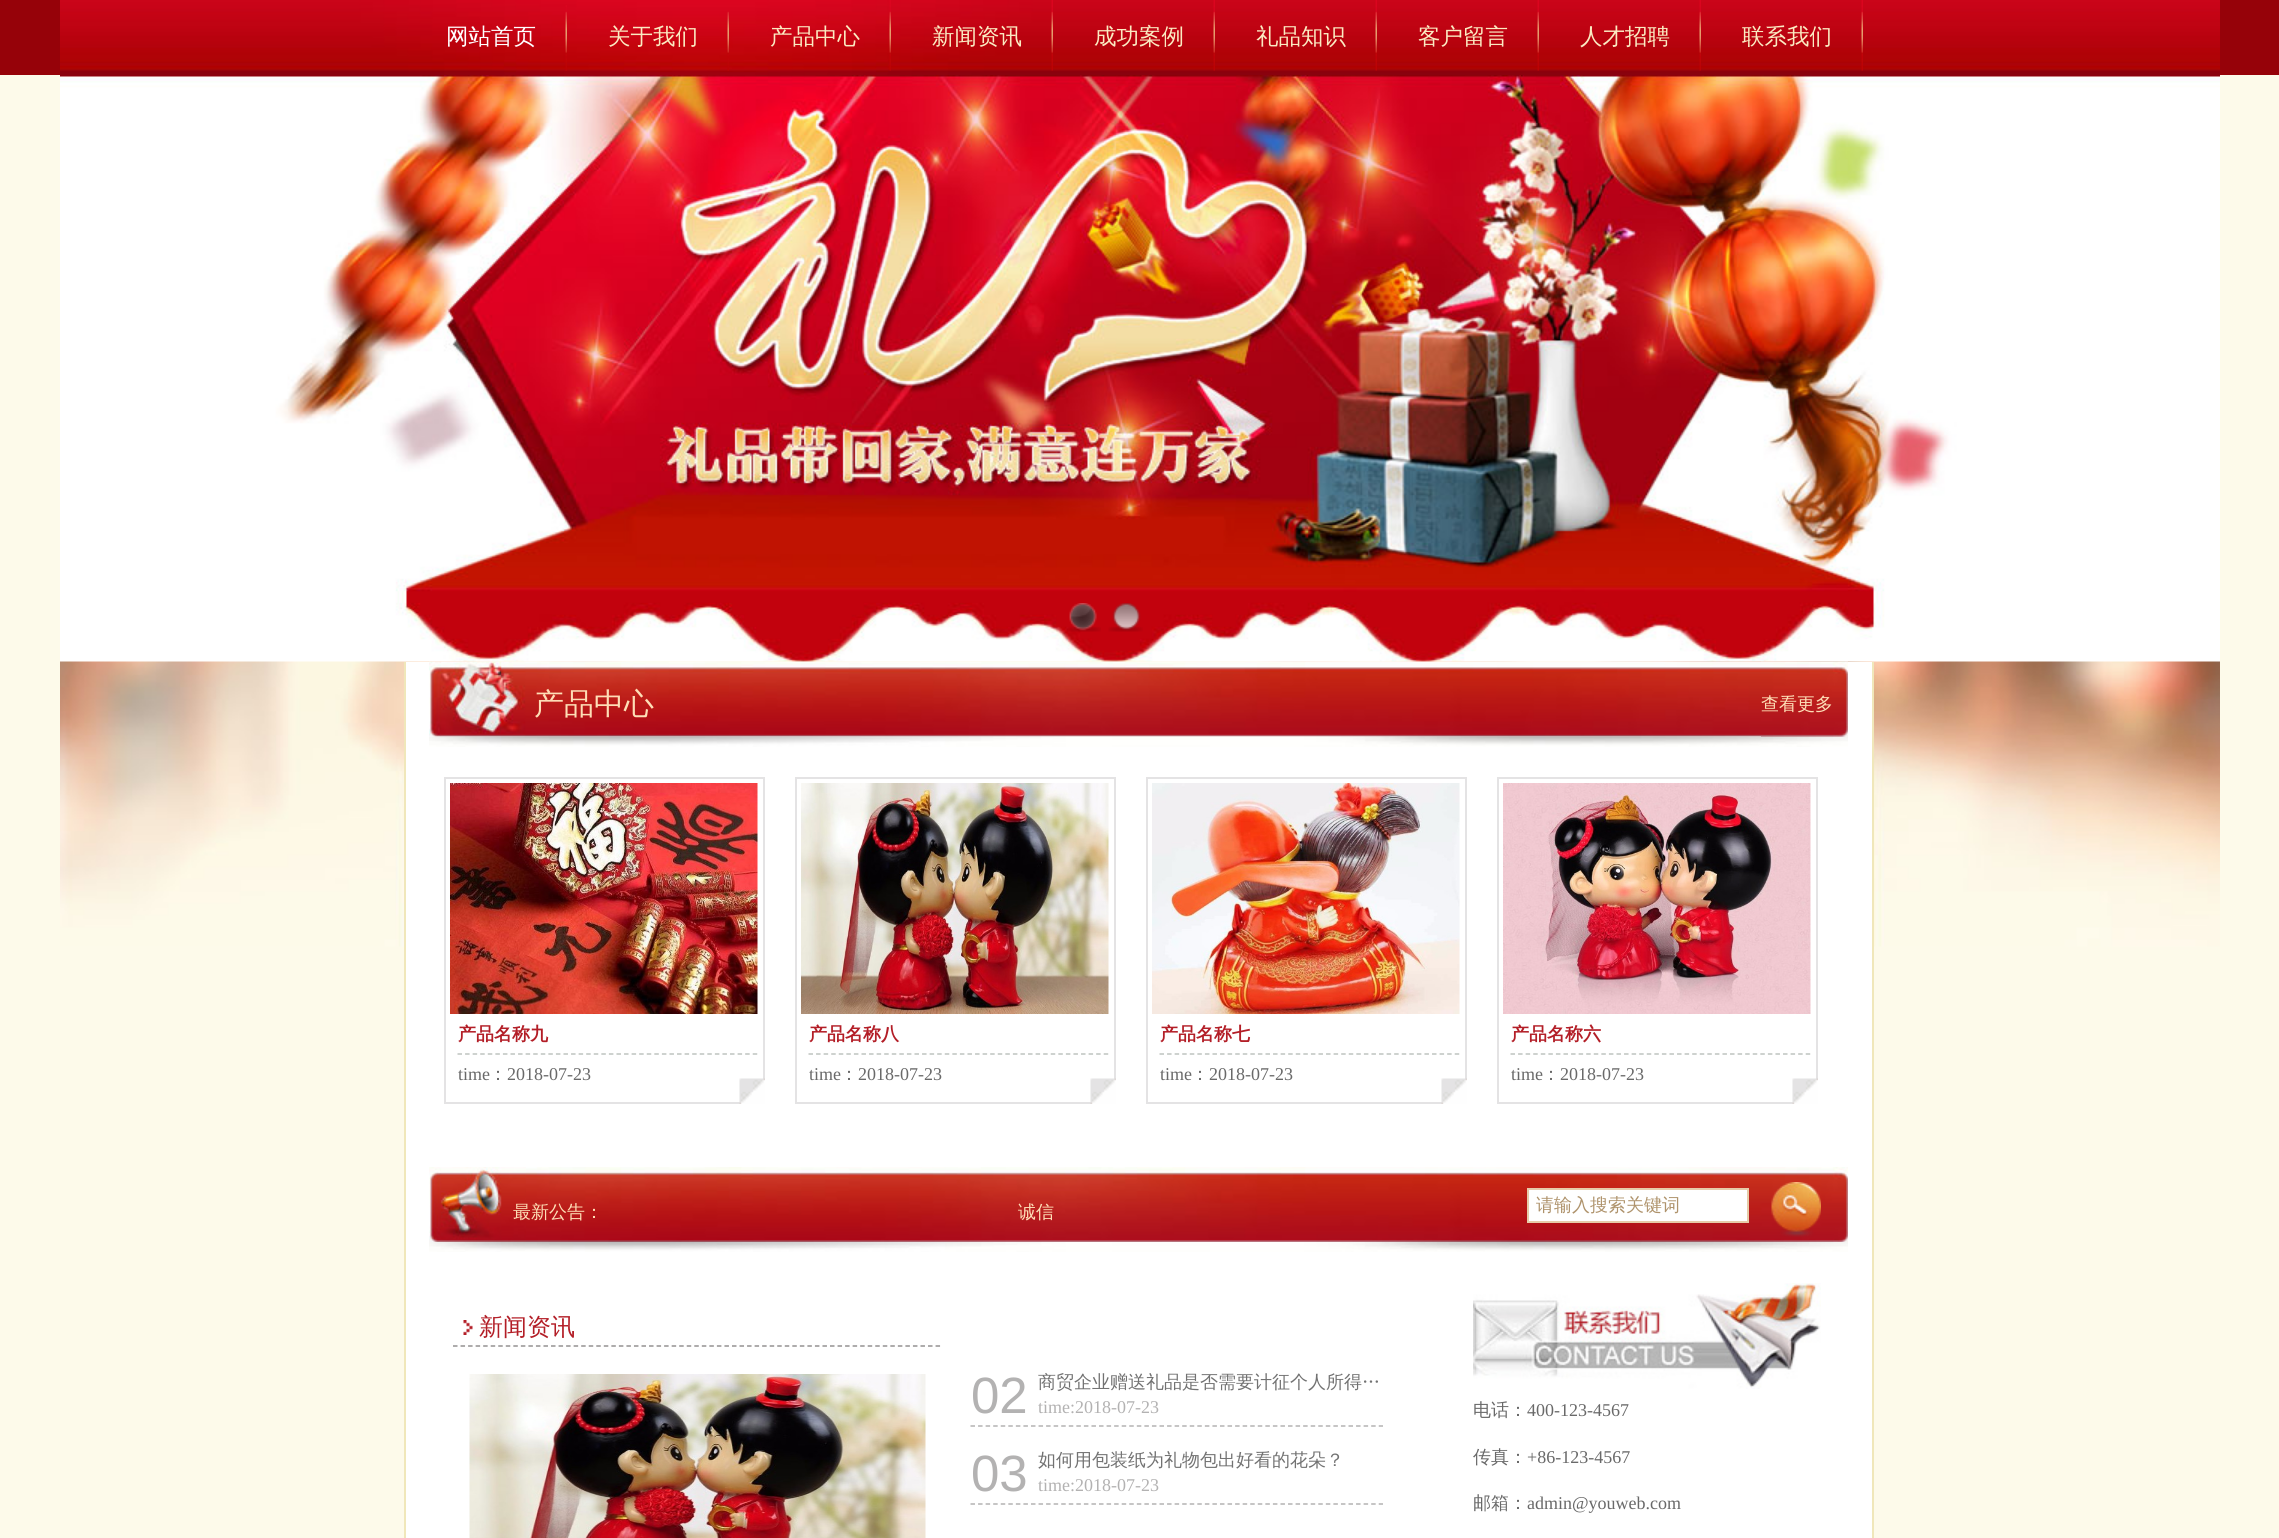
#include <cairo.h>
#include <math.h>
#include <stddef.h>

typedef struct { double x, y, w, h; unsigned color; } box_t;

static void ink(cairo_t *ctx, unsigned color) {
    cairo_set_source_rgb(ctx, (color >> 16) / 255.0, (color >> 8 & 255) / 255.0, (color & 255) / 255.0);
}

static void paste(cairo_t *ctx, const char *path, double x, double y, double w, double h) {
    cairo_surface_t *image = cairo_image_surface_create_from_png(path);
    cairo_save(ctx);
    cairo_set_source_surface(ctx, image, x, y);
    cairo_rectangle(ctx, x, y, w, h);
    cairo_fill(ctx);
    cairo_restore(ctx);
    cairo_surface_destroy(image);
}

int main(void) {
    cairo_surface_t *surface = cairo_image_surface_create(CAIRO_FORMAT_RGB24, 2279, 1538);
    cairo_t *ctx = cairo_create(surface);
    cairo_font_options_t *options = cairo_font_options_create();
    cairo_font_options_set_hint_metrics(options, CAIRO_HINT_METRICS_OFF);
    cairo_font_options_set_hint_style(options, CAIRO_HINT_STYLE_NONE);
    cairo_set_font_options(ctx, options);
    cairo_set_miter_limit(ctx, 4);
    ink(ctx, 0xFDFAEA);
    cairo_paint(ctx);
    paste(ctx, "media/1.png", 60, 661, 2160, 286);
    ink(ctx, 0x960209);
    cairo_rectangle(ctx, 0, 0, 2279, 75);
    cairo_fill(ctx);
    paste(ctx, "media/2.png", 60, 0, 2160, 75);
    paste(ctx, "media/3.png", 565, 5, 2, 66);
    cairo_select_font_face(ctx, "WenQuanYi Zen Hei Medium", CAIRO_FONT_SLANT_NORMAL, CAIRO_FONT_WEIGHT_NORMAL);
    cairo_set_font_size(ctx, 22.5);
    ink(ctx, 0xFFFFFF);
    cairo_move_to(ctx, 446, 44);
    cairo_show_text(ctx, "网站首页");
    paste(ctx, "media/4.png", 727, 11, 2, 60);
    ink(ctx, 0xFBEBC2);
    cairo_move_to(ctx, 608, 44);
    cairo_show_text(ctx, "关于我们");
    paste(ctx, "media/5.png", 889, 0, 2, 71);
    cairo_move_to(ctx, 770, 44);
    cairo_show_text(ctx, "产品中心");
    paste(ctx, "media/6.png", 1051, 0, 2, 71);
    cairo_move_to(ctx, 932, 44);
    cairo_show_text(ctx, "新闻资讯");
    paste(ctx, "media/6.png", 1213, 0, 2, 71);
    cairo_move_to(ctx, 1094, 44);
    cairo_show_text(ctx, "成功案例");
    paste(ctx, "media/6.png", 1375, 0, 2, 71);
    cairo_move_to(ctx, 1256, 44);
    cairo_show_text(ctx, "礼品知识");
    paste(ctx, "media/6.png", 1537, 0, 2, 71);
    cairo_move_to(ctx, 1418, 44);
    cairo_show_text(ctx, "客户留言");
    paste(ctx, "media/6.png", 1699, 0, 2, 71);
    cairo_move_to(ctx, 1580, 44);
    cairo_show_text(ctx, "人才招聘");
    paste(ctx, "media/6.png", 1861, 0, 2, 71);
    cairo_move_to(ctx, 1742, 44);
    cairo_show_text(ctx, "联系我们");
    paste(ctx, "media/7.png", 60, 75, 2160, 587);
    paste(ctx, "media/8.png", 1067, 603, 34, 29);
    paste(ctx, "media/9.png", 1108, 603, 35, 29);
    {
        static const box_t items[] = {
            {406, 662, 1466, 876, 0xFFFFFF},
            {1872, 662, 2, 876, 0xF0E7BA},
            {404, 662, 2, 876, 0xF0E7BA},
        };
        for (size_t i = 0; i < sizeof items / sizeof *items; i++) {
            ink(ctx, items[i].color);
            cairo_rectangle(ctx, items[i].x, items[i].y, items[i].w, items[i].h);
            cairo_fill(ctx);
        }
    }
    paste(ctx, "media/10.png", 429, 661, 1419, 76);
    cairo_set_font_size(ctx, 30);
    ink(ctx, 0xFEDEB6);
    cairo_move_to(ctx, 534, 714);
    cairo_show_text(ctx, "产品中心");
    paste(ctx, "media/12.png", 429, 736, 1419, 11);
    paste(ctx, "media/11.png", 1761, 661, 87, 76);
    cairo_set_font_size(ctx, 18);
    cairo_move_to(ctx, 1761, 710);
    cairo_show_text(ctx, "查看更多");
    cairo_rectangle(ctx, 445, 778, 319, 325);
    ink(ctx, 0xE4E3E4);
    cairo_stroke(ctx);
    paste(ctx, "media/13.png", 450, 783, 308, 231);
    cairo_new_path(ctx);
    cairo_move_to(ctx, 457.5, 1054);
    cairo_line_to(ctx, 757.5, 1054);
    ink(ctx, 0xBEC3BF);
    cairo_set_line_width(ctx, 1.5);
    cairo_set_dash(ctx, (double[]){4.5, 3.07}, 2, 0);
    cairo_stroke(ctx);
    cairo_select_font_face(ctx, "WenQuanYi Zen Hei", CAIRO_FONT_SLANT_NORMAL, CAIRO_FONT_WEIGHT_BOLD);
    ink(ctx, 0xB31E27);
    cairo_move_to(ctx, 458, 1040);
    cairo_show_text(ctx, "产品名称九");
    cairo_select_font_face(ctx, "Liberation Serif", CAIRO_FONT_SLANT_NORMAL, CAIRO_FONT_WEIGHT_NORMAL);
    ink(ctx, 0x696969);
    cairo_move_to(ctx, 458, 1080);
    cairo_show_text(ctx, "time");
    cairo_select_font_face(ctx, "WenQuanYi Zen Hei Medium", CAIRO_FONT_SLANT_NORMAL, CAIRO_FONT_WEIGHT_NORMAL);
    cairo_move_to(ctx, 489, 1080);
    cairo_show_text(ctx, "：");
    cairo_select_font_face(ctx, "Liberation Serif", CAIRO_FONT_SLANT_NORMAL, CAIRO_FONT_WEIGHT_NORMAL);
    cairo_move_to(ctx, 507, 1080);
    cairo_show_text(ctx, "2018-07-23");
    paste(ctx, "media/14.png", 739, 1078, 26, 26);
    cairo_rectangle(ctx, 796, 778, 319, 325);
    ink(ctx, 0xE4E3E4);
    cairo_set_line_width(ctx, 2);
    cairo_set_dash(ctx, NULL, 0, 0);
    cairo_stroke(ctx);
    paste(ctx, "media/15.png", 801, 783, 308, 231);
    cairo_new_path(ctx);
    cairo_move_to(ctx, 808.5, 1054);
    cairo_line_to(ctx, 1108.5, 1054);
    ink(ctx, 0xBEC3BF);
    cairo_set_line_width(ctx, 1.5);
    cairo_set_dash(ctx, (double[]){4.5, 3.07}, 2, 0);
    cairo_stroke(ctx);
    cairo_select_font_face(ctx, "WenQuanYi Zen Hei", CAIRO_FONT_SLANT_NORMAL, CAIRO_FONT_WEIGHT_BOLD);
    ink(ctx, 0xB31E27);
    cairo_move_to(ctx, 809, 1040);
    cairo_show_text(ctx, "产品名称八");
    cairo_select_font_face(ctx, "Liberation Serif", CAIRO_FONT_SLANT_NORMAL, CAIRO_FONT_WEIGHT_NORMAL);
    ink(ctx, 0x696969);
    cairo_move_to(ctx, 809, 1080);
    cairo_show_text(ctx, "time");
    cairo_select_font_face(ctx, "WenQuanYi Zen Hei Medium", CAIRO_FONT_SLANT_NORMAL, CAIRO_FONT_WEIGHT_NORMAL);
    cairo_move_to(ctx, 840, 1080);
    cairo_show_text(ctx, "：");
    cairo_select_font_face(ctx, "Liberation Serif", CAIRO_FONT_SLANT_NORMAL, CAIRO_FONT_WEIGHT_NORMAL);
    cairo_move_to(ctx, 858, 1080);
    cairo_show_text(ctx, "2018-07-23");
    paste(ctx, "media/16.png", 1090, 1078, 26, 26);
    cairo_rectangle(ctx, 1147, 778, 319, 325);
    ink(ctx, 0xE4E3E4);
    cairo_set_line_width(ctx, 2);
    cairo_set_dash(ctx, NULL, 0, 0);
    cairo_stroke(ctx);
    paste(ctx, "media/17.png", 1152, 783, 308, 231);
    cairo_new_path(ctx);
    cairo_move_to(ctx, 1159.5, 1054);
    cairo_line_to(ctx, 1459.5, 1054);
    ink(ctx, 0xBEC3BF);
    cairo_set_line_width(ctx, 1.5);
    cairo_set_dash(ctx, (double[]){4.5, 3.07}, 2, 0);
    cairo_stroke(ctx);
    cairo_select_font_face(ctx, "WenQuanYi Zen Hei", CAIRO_FONT_SLANT_NORMAL, CAIRO_FONT_WEIGHT_BOLD);
    ink(ctx, 0xB31E27);
    cairo_move_to(ctx, 1160, 1040);
    cairo_show_text(ctx, "产品名称七");
    cairo_select_font_face(ctx, "Liberation Serif", CAIRO_FONT_SLANT_NORMAL, CAIRO_FONT_WEIGHT_NORMAL);
    ink(ctx, 0x696969);
    cairo_move_to(ctx, 1160, 1080);
    cairo_show_text(ctx, "time");
    cairo_select_font_face(ctx, "WenQuanYi Zen Hei Medium", CAIRO_FONT_SLANT_NORMAL, CAIRO_FONT_WEIGHT_NORMAL);
    cairo_move_to(ctx, 1191, 1080);
    cairo_show_text(ctx, "：");
    cairo_select_font_face(ctx, "Liberation Serif", CAIRO_FONT_SLANT_NORMAL, CAIRO_FONT_WEIGHT_NORMAL);
    cairo_move_to(ctx, 1209, 1080);
    cairo_show_text(ctx, "2018-07-23");
    paste(ctx, "media/14.png", 1441, 1078, 26, 26);
    cairo_rectangle(ctx, 1498, 778, 319, 325);
    ink(ctx, 0xE4E3E4);
    cairo_set_line_width(ctx, 2);
    cairo_set_dash(ctx, NULL, 0, 0);
    cairo_stroke(ctx);
    paste(ctx, "media/18.png", 1503, 783, 308, 231);
    cairo_new_path(ctx);
    cairo_move_to(ctx, 1510.5, 1054);
    cairo_line_to(ctx, 1810.5, 1054);
    ink(ctx, 0xBEC3BF);
    cairo_set_line_width(ctx, 1.5);
    cairo_set_dash(ctx, (double[]){4.5, 3.07}, 2, 0);
    cairo_stroke(ctx);
    cairo_select_font_face(ctx, "WenQuanYi Zen Hei", CAIRO_FONT_SLANT_NORMAL, CAIRO_FONT_WEIGHT_BOLD);
    ink(ctx, 0xB31E27);
    cairo_move_to(ctx, 1511, 1040);
    cairo_show_text(ctx, "产品名称六");
    cairo_select_font_face(ctx, "Liberation Serif", CAIRO_FONT_SLANT_NORMAL, CAIRO_FONT_WEIGHT_NORMAL);
    ink(ctx, 0x696969);
    cairo_move_to(ctx, 1511, 1080);
    cairo_show_text(ctx, "time");
    cairo_select_font_face(ctx, "WenQuanYi Zen Hei Medium", CAIRO_FONT_SLANT_NORMAL, CAIRO_FONT_WEIGHT_NORMAL);
    cairo_move_to(ctx, 1542, 1080);
    cairo_show_text(ctx, "：");
    cairo_select_font_face(ctx, "Liberation Serif", CAIRO_FONT_SLANT_NORMAL, CAIRO_FONT_WEIGHT_NORMAL);
    cairo_move_to(ctx, 1560, 1080);
    cairo_show_text(ctx, "2018-07-23");
    paste(ctx, "media/16.png", 1792, 1078, 26, 26);
    paste(ctx, "media/19.png", 526, 1167, 1322, 75);
    paste(ctx, "media/20.png", 429, 1167, 97, 75);
    cairo_select_font_face(ctx, "WenQuanYi Zen Hei Medium", CAIRO_FONT_SLANT_NORMAL, CAIRO_FONT_WEIGHT_NORMAL);
    ink(ctx, 0xFEDEB6);
    cairo_move_to(ctx, 513, 1218);
    cairo_show_text(ctx, "最新公告：");
    cairo_move_to(ctx, 1018, 1218);
    cairo_show_text(ctx, "诚信");
    ink(ctx, 0xFFFFFF);
    cairo_rectangle(ctx, 1528, 1189, 220, 33);
    cairo_fill_preserve(ctx);
    ink(ctx, 0xE6CCA9);
    cairo_set_line_width(ctx, 2);
    cairo_set_dash(ctx, NULL, 0, 0);
    cairo_stroke(ctx);
    ink(ctx, 0xAF936C);
    cairo_move_to(ctx, 1536, 1211);
    cairo_show_text(ctx, "请输入搜索关键词");
    paste(ctx, "media/21.png", 1771, 1182, 50, 55);
    paste(ctx, "media/22.png", 429, 1242, 1419, 10);
    cairo_new_path(ctx);
    cairo_move_to(ctx, 453, 1346);
    cairo_line_to(ctx, 940.5, 1346);
    ink(ctx, 0x939191);
    cairo_set_line_width(ctx, 1.5);
    cairo_set_dash(ctx, (double[]){4.5, 3.04}, 2, 0);
    cairo_stroke(ctx);
    paste(ctx, "media/23.png", 463, 1320, 10, 15);
    cairo_set_font_size(ctx, 24);
    ink(ctx, 0xB31E27);
    cairo_move_to(ctx, 479, 1335);
    cairo_show_text(ctx, "新闻资讯");
    paste(ctx, "media/24.png", 469, 1374, 457, 164);
    cairo_new_path(ctx);
    cairo_move_to(ctx, 970.5, 1426);
    cairo_line_to(ctx, 1383, 1426);
    ink(ctx, 0xB3B2B2);
    cairo_set_dash(ctx, (double[]){4.5, 3.06}, 2, 0);
    cairo_stroke(ctx);
    cairo_select_font_face(ctx, "Liberation Sans", CAIRO_FONT_SLANT_NORMAL, CAIRO_FONT_WEIGHT_NORMAL);
    cairo_set_font_size(ctx, 51);
    cairo_move_to(ctx, 971, 1413);
    cairo_show_text(ctx, "02");
    cairo_select_font_face(ctx, "WenQuanYi Zen Hei Medium", CAIRO_FONT_SLANT_NORMAL, CAIRO_FONT_WEIGHT_NORMAL);
    cairo_set_font_size(ctx, 18);
    ink(ctx, 0x727272);
    cairo_move_to(ctx, 1038, 1388);
    cairo_show_text(ctx, "商贸企业赠送礼品是否需要计征个人所得…");
    cairo_select_font_face(ctx, "Liberation Serif", CAIRO_FONT_SLANT_NORMAL, CAIRO_FONT_WEIGHT_NORMAL);
    ink(ctx, 0xB3B2B2);
    cairo_move_to(ctx, 1038, 1413);
    cairo_show_text(ctx, "time:2018-07-23");
    cairo_new_path(ctx);
    cairo_move_to(ctx, 970.5, 1504);
    cairo_line_to(ctx, 1383, 1504);
    cairo_stroke(ctx);
    cairo_select_font_face(ctx, "Liberation Sans", CAIRO_FONT_SLANT_NORMAL, CAIRO_FONT_WEIGHT_NORMAL);
    cairo_set_font_size(ctx, 51);
    cairo_move_to(ctx, 971, 1491);
    cairo_show_text(ctx, "03");
    cairo_select_font_face(ctx, "WenQuanYi Zen Hei Medium", CAIRO_FONT_SLANT_NORMAL, CAIRO_FONT_WEIGHT_NORMAL);
    cairo_set_font_size(ctx, 18);
    ink(ctx, 0x727272);
    cairo_move_to(ctx, 1038, 1466);
    cairo_show_text(ctx, "如何用包装纸为礼物包出好看的花朵？");
    cairo_select_font_face(ctx, "Liberation Serif", CAIRO_FONT_SLANT_NORMAL, CAIRO_FONT_WEIGHT_NORMAL);
    ink(ctx, 0xB3B2B2);
    cairo_move_to(ctx, 1038, 1491);
    cairo_show_text(ctx, "time:2018-07-23");
    paste(ctx, "media/25.png", 1473, 1283, 348, 106);
    cairo_select_font_face(ctx, "WenQuanYi Zen Hei Medium", CAIRO_FONT_SLANT_NORMAL, CAIRO_FONT_WEIGHT_NORMAL);
    ink(ctx, 0x696969);
    cairo_move_to(ctx, 1473, 1416);
    cairo_show_text(ctx, "电话：");
    cairo_select_font_face(ctx, "Liberation Serif", CAIRO_FONT_SLANT_NORMAL, CAIRO_FONT_WEIGHT_NORMAL);
    cairo_move_to(ctx, 1527, 1416);
    cairo_show_text(ctx, "400-123-4567");
    cairo_select_font_face(ctx, "WenQuanYi Zen Hei Medium", CAIRO_FONT_SLANT_NORMAL, CAIRO_FONT_WEIGHT_NORMAL);
    cairo_move_to(ctx, 1473, 1463);
    cairo_show_text(ctx, "传真：");
    cairo_select_font_face(ctx, "Liberation Serif", CAIRO_FONT_SLANT_NORMAL, CAIRO_FONT_WEIGHT_NORMAL);
    cairo_move_to(ctx, 1527, 1463);
    cairo_show_text(ctx, "+86-123-4567");
    cairo_select_font_face(ctx, "WenQuanYi Zen Hei Medium", CAIRO_FONT_SLANT_NORMAL, CAIRO_FONT_WEIGHT_NORMAL);
    cairo_move_to(ctx, 1473, 1509);
    cairo_show_text(ctx, "邮箱：");
    cairo_select_font_face(ctx, "Liberation Serif", CAIRO_FONT_SLANT_NORMAL, CAIRO_FONT_WEIGHT_NORMAL);
    cairo_move_to(ctx, 1527, 1509);
    cairo_show_text(ctx, "admin@youweb.com");
    cairo_surface_write_to_png(surface, "image.png");
    cairo_font_options_destroy(options);
    cairo_destroy(ctx);
    cairo_surface_destroy(surface);
    return 0;
}
